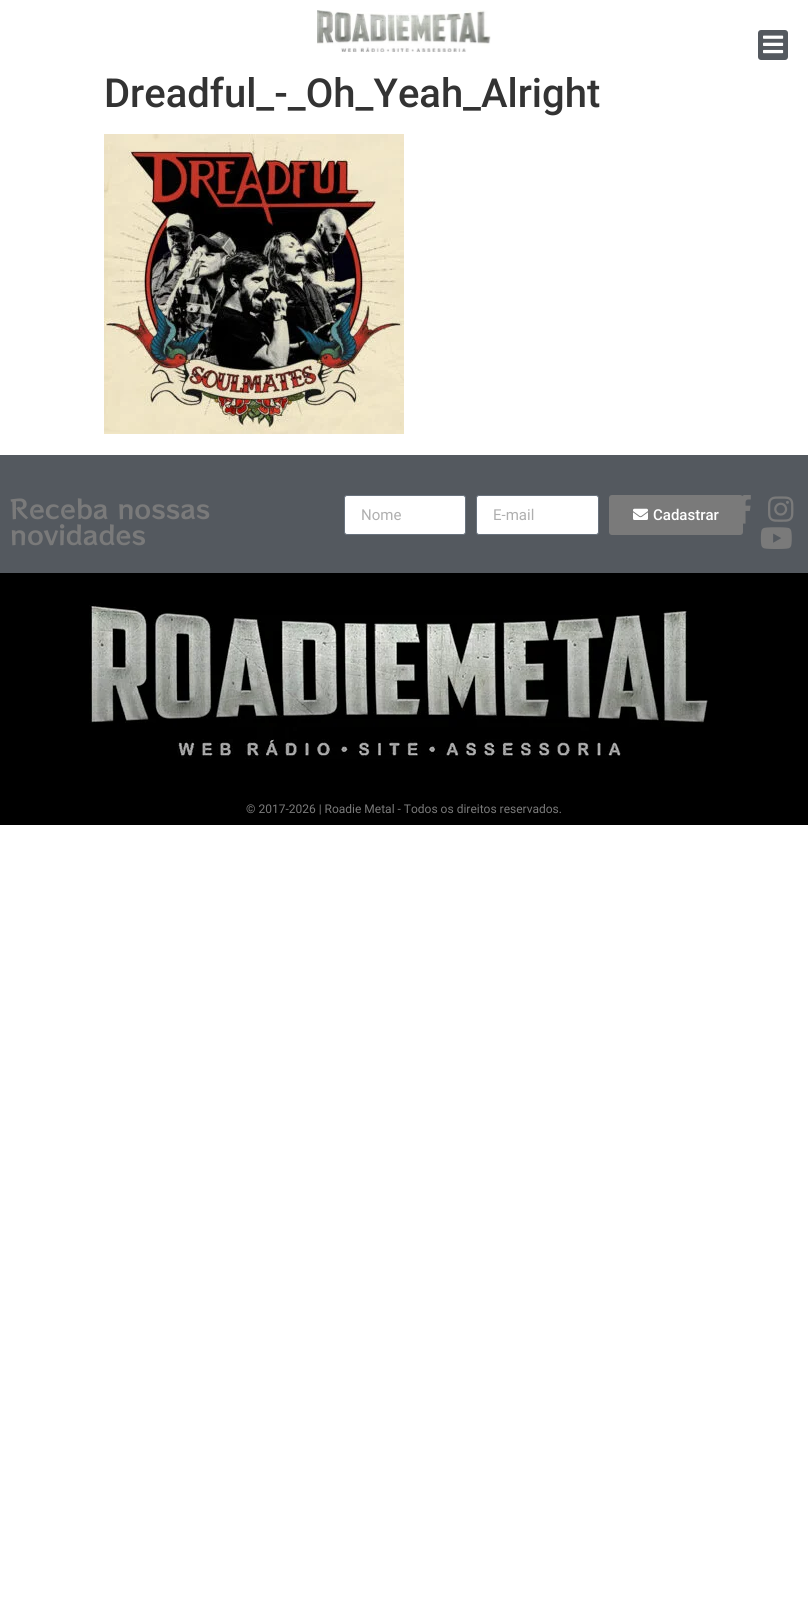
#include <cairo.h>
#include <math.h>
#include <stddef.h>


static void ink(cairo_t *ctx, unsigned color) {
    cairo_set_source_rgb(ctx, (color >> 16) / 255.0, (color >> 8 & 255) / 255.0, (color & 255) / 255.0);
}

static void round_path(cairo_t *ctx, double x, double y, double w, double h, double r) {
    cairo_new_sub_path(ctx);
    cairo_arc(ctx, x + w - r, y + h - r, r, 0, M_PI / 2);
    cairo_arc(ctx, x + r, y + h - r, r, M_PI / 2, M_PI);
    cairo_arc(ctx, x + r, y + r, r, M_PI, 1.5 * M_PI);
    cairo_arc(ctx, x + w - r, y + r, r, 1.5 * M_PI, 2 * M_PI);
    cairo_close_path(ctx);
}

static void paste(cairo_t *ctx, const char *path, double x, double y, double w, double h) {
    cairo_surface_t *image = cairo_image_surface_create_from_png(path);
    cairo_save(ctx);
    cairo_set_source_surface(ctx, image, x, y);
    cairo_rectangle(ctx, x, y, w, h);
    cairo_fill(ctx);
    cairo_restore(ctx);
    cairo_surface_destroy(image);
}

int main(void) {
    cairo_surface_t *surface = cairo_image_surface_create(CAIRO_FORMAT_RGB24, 808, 1613);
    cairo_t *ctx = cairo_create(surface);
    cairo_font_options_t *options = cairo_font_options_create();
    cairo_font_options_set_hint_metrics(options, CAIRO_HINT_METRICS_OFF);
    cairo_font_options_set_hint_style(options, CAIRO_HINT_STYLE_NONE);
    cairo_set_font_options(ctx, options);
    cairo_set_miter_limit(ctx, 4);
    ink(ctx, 0xFFFFFF);
    cairo_paint(ctx);
    paste(ctx, "media/1.png", 317, 10, 174, 42);
    ink(ctx, 0x54595F);
    round_path(ctx, 758, 30, 30, 30, 3);
    cairo_fill(ctx);
    paste(ctx, "media/2.png", 763, 35, 21, 19);
    cairo_select_font_face(ctx, "Roboto Medium", CAIRO_FONT_SLANT_NORMAL, CAIRO_FONT_WEIGHT_NORMAL);
    cairo_set_font_size(ctx, 40);
    ink(ctx, 0x333333);
    cairo_move_to(ctx, 104, 107);
    cairo_show_text(ctx, "Dreadful_-_Oh_Yeah_Alright");
    paste(ctx, "media/3.png", 104, 134, 300, 300);
    ink(ctx, 0x54595F);
    cairo_rectangle(ctx, 0, 455, 808, 118);
    cairo_fill(ctx);
    cairo_select_font_face(ctx, "RocknRoll One", CAIRO_FONT_SLANT_NORMAL, CAIRO_FONT_WEIGHT_NORMAL);
    cairo_set_font_size(ctx, 26);
    ink(ctx, 0x7A7A7A);
    cairo_move_to(ctx, 10, 519);
    cairo_show_text(ctx, "Receba nossas");
    cairo_move_to(ctx, 10, 545);
    cairo_show_text(ctx, "novidades");
    ink(ctx, 0xFFFFFF);
    round_path(ctx, 344.5, 495.5, 121, 39, 2.5);
    cairo_fill_preserve(ctx);
    ink(ctx, 0x69727D);
    cairo_set_line_width(ctx, 1);
    cairo_stroke(ctx);
    cairo_select_font_face(ctx, "Roboto", CAIRO_FONT_SLANT_NORMAL, CAIRO_FONT_WEIGHT_NORMAL);
    cairo_set_font_size(ctx, 15);
    ink(ctx, 0xAFAFAF);
    cairo_move_to(ctx, 361, 520);
    cairo_show_text(ctx, "Nome");
    ink(ctx, 0xFFFFFF);
    round_path(ctx, 476.5, 495.5, 122, 39, 2.5);
    cairo_fill_preserve(ctx);
    ink(ctx, 0x69727D);
    cairo_stroke(ctx);
    ink(ctx, 0xAFAFAF);
    cairo_move_to(ctx, 493, 520);
    cairo_show_text(ctx, "E-mail");
    ink(ctx, 0x7A7A7A);
    round_path(ctx, 609, 495, 134, 40, 3);
    cairo_fill(ctx);
    paste(ctx, "media/4.png", 633, 508, 15, 12);
    cairo_select_font_face(ctx, "Roboto Medium", CAIRO_FONT_SLANT_NORMAL, CAIRO_FONT_WEIGHT_NORMAL);
    ink(ctx, 0xFFFFFF);
    cairo_move_to(ctx, 653, 520);
    cairo_show_text(ctx, "Cadastrar");
    paste(ctx, "media/5.png", 742, 495, 9, 29);
    paste(ctx, "media/6.png", 768, 496, 26, 26);
    paste(ctx, "media/7.png", 760, 527, 32, 22);
    ink(ctx, 0x000000);
    cairo_rectangle(ctx, 0, 573, 808, 252);
    cairo_fill(ctx);
    paste(ctx, "media/8.png", 89, 603, 619, 156);
    cairo_select_font_face(ctx, "Roboto", CAIRO_FONT_SLANT_NORMAL, CAIRO_FONT_WEIGHT_NORMAL);
    cairo_set_font_size(ctx, 12);
    ink(ctx, 0x7A7A7A);
    cairo_move_to(ctx, 246, 813);
    cairo_show_text(ctx, "© 2017-2026 | Roadie Metal - Todos os direitos reservados.");
    cairo_surface_write_to_png(surface, "image.png");
    cairo_font_options_destroy(options);
    cairo_destroy(ctx);
    cairo_surface_destroy(surface);
    return 0;
}
